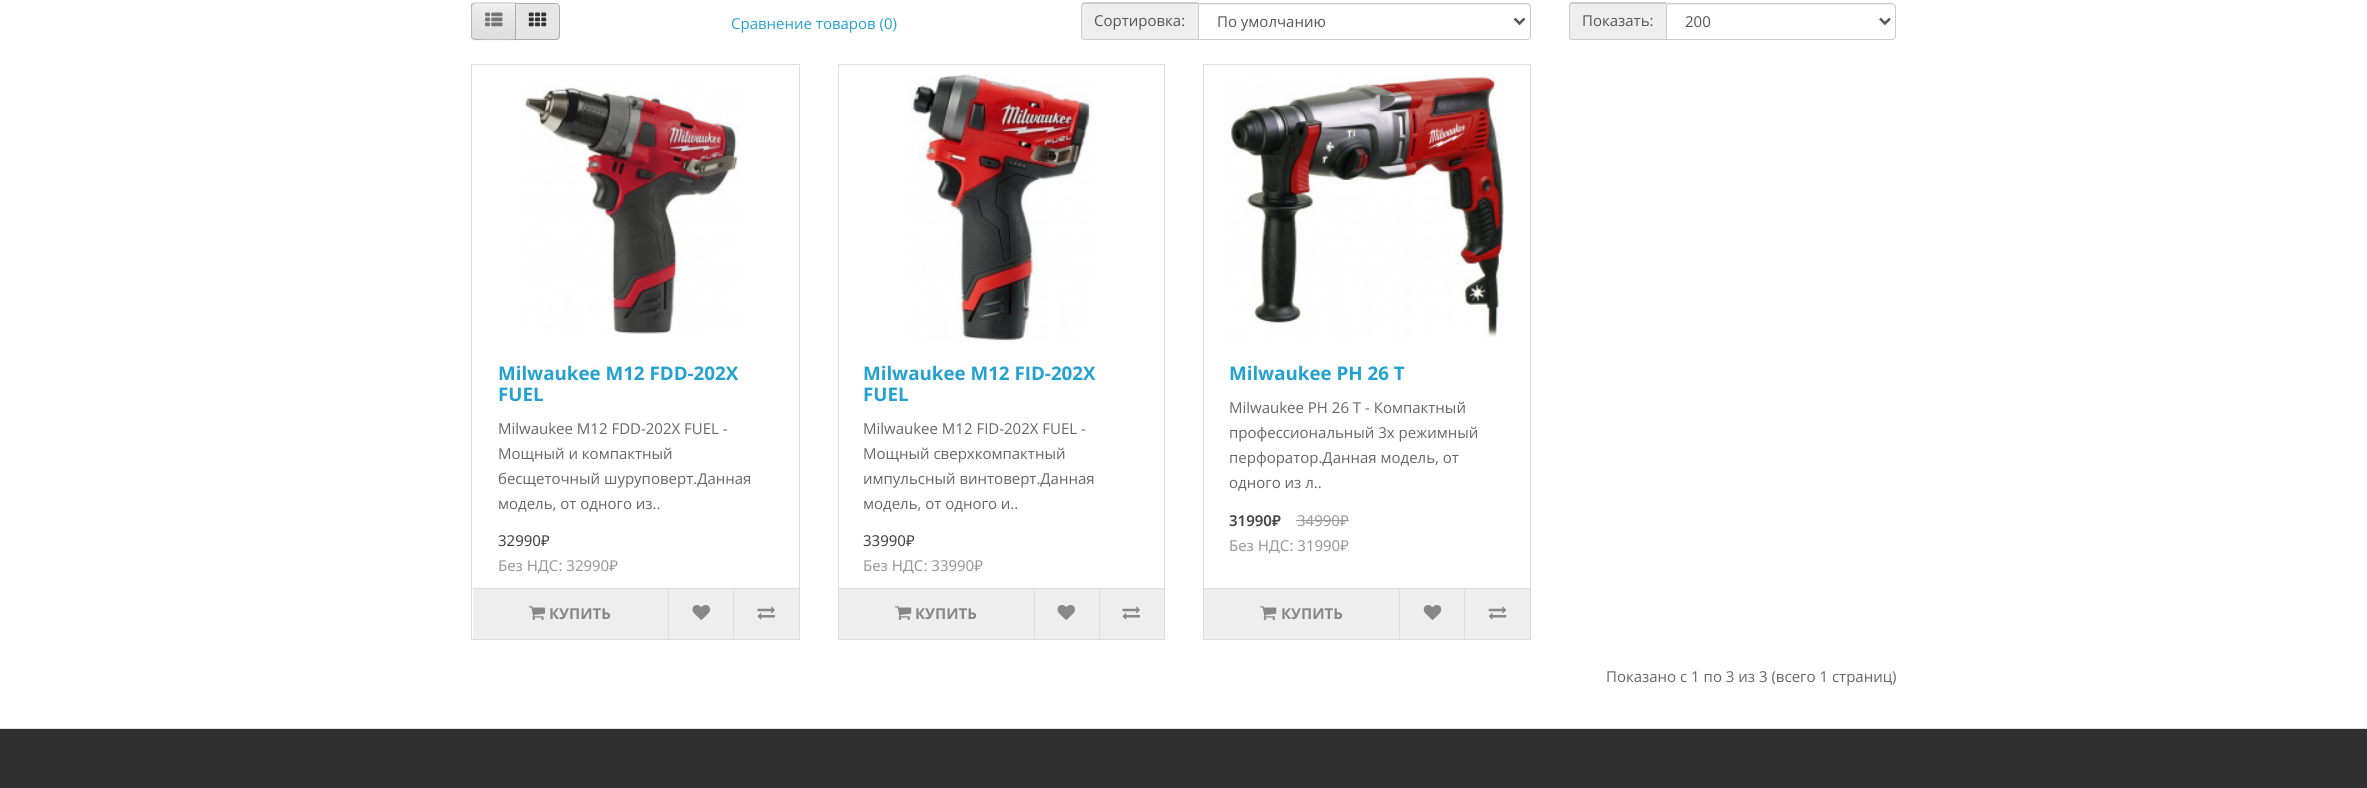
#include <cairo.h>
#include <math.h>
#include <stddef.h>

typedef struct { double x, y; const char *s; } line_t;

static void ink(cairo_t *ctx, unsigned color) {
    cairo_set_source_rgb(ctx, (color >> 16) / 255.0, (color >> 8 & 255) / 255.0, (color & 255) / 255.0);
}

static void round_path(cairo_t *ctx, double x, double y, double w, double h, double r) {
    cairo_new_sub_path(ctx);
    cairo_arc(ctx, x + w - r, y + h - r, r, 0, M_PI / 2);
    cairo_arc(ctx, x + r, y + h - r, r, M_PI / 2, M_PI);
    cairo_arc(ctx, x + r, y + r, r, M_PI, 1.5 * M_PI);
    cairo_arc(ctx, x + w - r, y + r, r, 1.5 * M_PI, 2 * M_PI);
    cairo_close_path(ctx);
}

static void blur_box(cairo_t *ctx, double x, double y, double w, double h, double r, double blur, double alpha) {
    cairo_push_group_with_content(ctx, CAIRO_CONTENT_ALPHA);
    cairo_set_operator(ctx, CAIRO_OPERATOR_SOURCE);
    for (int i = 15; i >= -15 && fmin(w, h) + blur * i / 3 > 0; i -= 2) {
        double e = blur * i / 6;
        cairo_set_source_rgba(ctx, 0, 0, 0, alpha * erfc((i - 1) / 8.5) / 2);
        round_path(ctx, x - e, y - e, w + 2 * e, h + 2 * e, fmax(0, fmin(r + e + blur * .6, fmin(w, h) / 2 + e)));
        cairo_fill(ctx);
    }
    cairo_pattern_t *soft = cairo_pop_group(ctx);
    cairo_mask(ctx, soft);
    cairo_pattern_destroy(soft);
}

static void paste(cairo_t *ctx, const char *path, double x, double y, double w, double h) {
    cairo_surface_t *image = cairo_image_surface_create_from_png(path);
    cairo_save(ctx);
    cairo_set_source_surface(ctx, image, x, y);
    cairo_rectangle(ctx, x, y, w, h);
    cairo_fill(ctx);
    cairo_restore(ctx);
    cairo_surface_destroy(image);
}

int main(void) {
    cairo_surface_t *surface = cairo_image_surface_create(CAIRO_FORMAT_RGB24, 2367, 788);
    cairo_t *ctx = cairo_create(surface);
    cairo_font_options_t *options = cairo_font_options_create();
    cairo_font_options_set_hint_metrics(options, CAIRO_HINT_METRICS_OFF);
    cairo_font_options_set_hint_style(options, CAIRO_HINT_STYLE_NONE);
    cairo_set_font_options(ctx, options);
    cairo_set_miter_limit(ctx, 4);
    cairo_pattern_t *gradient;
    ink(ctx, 0xFFFFFF);
    cairo_paint(ctx);
    ink(ctx, 0x000000);
    blur_box(ctx, 471, 4, 45, 37, 4, 1, 0.05);
    ink(ctx, 0xE7E7E7);
    cairo_new_path(ctx);
    cairo_move_to(ctx, 475, 3);
    cairo_line_to(ctx, 516, 3);
    cairo_line_to(ctx, 516, 40);
    cairo_line_to(ctx, 475, 40);
    cairo_curve_to(ctx, 473, 40, 471, 38, 471, 36);
    cairo_line_to(ctx, 471, 7);
    cairo_curve_to(ctx, 471, 5, 473, 3, 475, 3);
    cairo_close_path(ctx);
    cairo_fill(ctx);
    cairo_save(ctx);
    cairo_new_path(ctx);
    cairo_move_to(ctx, 475, 3);
    cairo_line_to(ctx, 516, 3);
    cairo_line_to(ctx, 516, 40);
    cairo_line_to(ctx, 475, 40);
    cairo_curve_to(ctx, 473, 40, 471, 38, 471, 36);
    cairo_line_to(ctx, 471, 7);
    cairo_curve_to(ctx, 471, 5, 473, 3, 475, 3);
    cairo_close_path(ctx);
    cairo_clip(ctx);
    gradient = cairo_pattern_create_linear(494, 3.7, 494, 39);
    cairo_pattern_add_color_stop_rgba(gradient, 0, 0.933, 0.933, 0.933, 1);
    cairo_pattern_add_color_stop_rgba(gradient, 1, 0.867, 0.867, 0.867, 1);
    cairo_set_source(ctx, gradient);
    cairo_pattern_destroy(gradient);
    cairo_rectangle(ctx, 471, 4, 44, 35);
    cairo_fill(ctx);
    cairo_restore(ctx);
    ink(ctx, 0xF1F1F1);
    cairo_new_path(ctx);
    cairo_move_to(ctx, 475, 5);
    cairo_line_to(ctx, 515, 5);
    cairo_line_to(ctx, 515, 4);
    cairo_line_to(ctx, 476, 4);
    cairo_curve_to(ctx, 474, 4, 473, 5, 473, 6);
    cairo_close_path(ctx);
    cairo_fill(ctx);
    ink(ctx, 0xDDDDDD);
    cairo_new_path(ctx);
    cairo_move_to(ctx, 475, 4);
    cairo_line_to(ctx, 473, 5);
    cairo_line_to(ctx, 472, 3);
    cairo_line_to(ctx, 473, 2);
    cairo_line_to(ctx, 516, 2);
    cairo_line_to(ctx, 515, 4);
    cairo_close_path(ctx);
    cairo_fill(ctx);
    ink(ctx, 0xB3B3B3);
    cairo_new_path(ctx);
    cairo_move_to(ctx, 475, 40);
    cairo_line_to(ctx, 516, 40);
    cairo_line_to(ctx, 515, 39);
    cairo_curve_to(ctx, 510, 39, 475, 40, 473, 38);
    cairo_line_to(ctx, 472, 39);
    cairo_close_path(ctx);
    cairo_fill(ctx);
    ink(ctx, 0xB7B7B7);
    cairo_new_path(ctx);
    cairo_move_to(ctx, 471, 4.5);
    cairo_line_to(ctx, 472, 3.5);
    cairo_line_to(ctx, 473.5, 4.5);
    cairo_line_to(ctx, 472, 6);
    cairo_line_to(ctx, 472, 36.5);
    cairo_curve_to(ctx, 472, 37, 472.5, 37.5, 473, 38);
    cairo_line_to(ctx, 472.5, 39);
    cairo_line_to(ctx, 471, 37.5);
    cairo_close_path(ctx);
    cairo_fill(ctx);
    paste(ctx, "media/1.png", 485, 12, 18, 15);
    ink(ctx, 0xE6E6E6);
    cairo_new_path(ctx);
    cairo_move_to(ctx, 515.5, 3.5);
    cairo_line_to(ctx, 556, 3.5);
    cairo_curve_to(ctx, 558, 3.5, 559.5, 5, 559.5, 7);
    cairo_line_to(ctx, 559.5, 36);
    cairo_curve_to(ctx, 559.5, 38, 558, 39.5, 556, 39.5);
    cairo_line_to(ctx, 515.5, 39.5);
    cairo_close_path(ctx);
    cairo_fill_preserve(ctx);
    ink(ctx, 0xADADAD);
    cairo_set_line_width(ctx, 1);
    cairo_stroke(ctx);
    paste(ctx, "media/2.png", 528, 12, 19, 15);
    cairo_select_font_face(ctx, "Open Sans", CAIRO_FONT_SLANT_NORMAL, CAIRO_FONT_WEIGHT_NORMAL);
    cairo_set_font_size(ctx, 15);
    ink(ctx, 0x23A1D1);
    cairo_move_to(ctx, 731, 29);
    cairo_show_text(ctx, "Сравнение товаров (0)");
    ink(ctx, 0xEEEEEE);
    cairo_new_path(ctx);
    cairo_move_to(ctx, 1085, 3);
    cairo_line_to(ctx, 1198, 3);
    cairo_line_to(ctx, 1198, 40);
    cairo_line_to(ctx, 1085, 40);
    cairo_curve_to(ctx, 1083, 40, 1081, 38, 1081, 36);
    cairo_line_to(ctx, 1081, 7);
    cairo_curve_to(ctx, 1081, 5, 1083, 3, 1085, 3);
    cairo_close_path(ctx);
    cairo_fill(ctx);
    ink(ctx, 0xCCCCCC);
    cairo_set_fill_rule(ctx, CAIRO_FILL_RULE_EVEN_ODD);
    cairo_new_path(ctx);
    cairo_move_to(ctx, 1085, 2);
    cairo_line_to(ctx, 1198, 2);
    cairo_line_to(ctx, 1198, 40);
    cairo_line_to(ctx, 1085, 40);
    cairo_curve_to(ctx, 1083, 40, 1081, 38, 1081, 36);
    cairo_line_to(ctx, 1081, 6);
    cairo_curve_to(ctx, 1081, 4, 1083, 2, 1085, 2);
    cairo_close_path(ctx);
    cairo_move_to(ctx, 1085, 4);
    cairo_line_to(ctx, 1198, 4);
    cairo_line_to(ctx, 1198, 39);
    cairo_line_to(ctx, 1085, 39);
    cairo_curve_to(ctx, 1084, 39, 1082, 38, 1082, 36);
    cairo_line_to(ctx, 1082, 6);
    cairo_curve_to(ctx, 1082, 5, 1084, 4, 1085, 4);
    cairo_close_path(ctx);
    cairo_fill(ctx);
    ink(ctx, 0x555555);
    cairo_move_to(ctx, 1094, 26);
    cairo_show_text(ctx, "Сортировка:");
    ink(ctx, 0xECECEC);
    cairo_set_fill_rule(ctx, CAIRO_FILL_RULE_WINDING);
    cairo_new_path(ctx);
    cairo_move_to(ctx, 1199, 5);
    cairo_line_to(ctx, 1528, 5);
    cairo_curve_to(ctx, 1529, 5, 1530, 6, 1530, 8);
    cairo_line_to(ctx, 1530, 6);
    cairo_curve_to(ctx, 1530, 5, 1529, 4, 1528, 4);
    cairo_line_to(ctx, 1199, 4);
    cairo_close_path(ctx);
    cairo_fill(ctx);
    cairo_new_path(ctx);
    cairo_move_to(ctx, 1198.5, 3.5);
    cairo_line_to(ctx, 1527, 3.5);
    cairo_curve_to(ctx, 1529, 3.5, 1530.5, 5, 1530.5, 7);
    cairo_line_to(ctx, 1530.5, 36);
    cairo_curve_to(ctx, 1530.5, 38, 1529, 39.5, 1527, 39.5);
    cairo_line_to(ctx, 1198.5, 39.5);
    cairo_close_path(ctx);
    ink(ctx, 0xCCCCCC);
    cairo_stroke(ctx);
    cairo_new_path(ctx);
    cairo_move_to(ctx, 1514.5, 18.5);
    cairo_line_to(ctx, 1519.5, 23.5);
    cairo_line_to(ctx, 1524.5, 18.5);
    ink(ctx, 0x555555);
    cairo_set_line_width(ctx, 2.5);
    cairo_stroke(ctx);
    cairo_move_to(ctx, 1217, 27);
    cairo_show_text(ctx, "По умолчанию");
    ink(ctx, 0xEEEEEE);
    cairo_new_path(ctx);
    cairo_move_to(ctx, 1573, 3);
    cairo_line_to(ctx, 1666, 3);
    cairo_line_to(ctx, 1666, 40);
    cairo_line_to(ctx, 1573, 40);
    cairo_curve_to(ctx, 1571, 40, 1569, 38, 1569, 36);
    cairo_line_to(ctx, 1569, 7);
    cairo_curve_to(ctx, 1569, 5, 1571, 3, 1573, 3);
    cairo_close_path(ctx);
    cairo_fill(ctx);
    ink(ctx, 0xCCCCCC);
    cairo_set_fill_rule(ctx, CAIRO_FILL_RULE_EVEN_ODD);
    cairo_new_path(ctx);
    cairo_move_to(ctx, 1572, 2);
    cairo_line_to(ctx, 1666, 2);
    cairo_line_to(ctx, 1666, 40);
    cairo_line_to(ctx, 1572, 40);
    cairo_curve_to(ctx, 1570, 40, 1569, 38, 1569, 36);
    cairo_line_to(ctx, 1569, 6);
    cairo_curve_to(ctx, 1569, 4, 1570, 2, 1572, 2);
    cairo_close_path(ctx);
    cairo_move_to(ctx, 1572, 4);
    cairo_line_to(ctx, 1666, 4);
    cairo_line_to(ctx, 1666, 39);
    cairo_line_to(ctx, 1572, 39);
    cairo_curve_to(ctx, 1571, 39, 1570, 38, 1570, 36);
    cairo_line_to(ctx, 1570, 6);
    cairo_curve_to(ctx, 1570, 5, 1571, 4, 1572, 4);
    cairo_close_path(ctx);
    cairo_fill(ctx);
    ink(ctx, 0x555555);
    cairo_move_to(ctx, 1582, 26);
    cairo_show_text(ctx, "Показать:");
    ink(ctx, 0xECECEC);
    cairo_set_fill_rule(ctx, CAIRO_FILL_RULE_WINDING);
    cairo_new_path(ctx);
    cairo_move_to(ctx, 1668, 5);
    cairo_line_to(ctx, 1892, 5);
    cairo_curve_to(ctx, 1894, 5, 1895, 6, 1895, 8);
    cairo_curve_to(ctx, 1895, 6, 1895, 4, 1892, 4);
    cairo_line_to(ctx, 1668, 4);
    cairo_close_path(ctx);
    cairo_fill(ctx);
    cairo_new_path(ctx);
    cairo_move_to(ctx, 1666.5, 3.5);
    cairo_line_to(ctx, 1892, 3.5);
    cairo_curve_to(ctx, 1894, 3.5, 1895.5, 5, 1895.5, 7);
    cairo_line_to(ctx, 1895.5, 36);
    cairo_curve_to(ctx, 1895.5, 38, 1894, 39.5, 1892, 39.5);
    cairo_line_to(ctx, 1666.5, 39.5);
    cairo_close_path(ctx);
    ink(ctx, 0xCCCCCC);
    cairo_set_line_width(ctx, 1);
    cairo_stroke(ctx);
    cairo_new_path(ctx);
    cairo_move_to(ctx, 1880, 18.5);
    cairo_line_to(ctx, 1885, 23.5);
    cairo_line_to(ctx, 1890, 18.5);
    ink(ctx, 0x555555);
    cairo_set_line_width(ctx, 2.5);
    cairo_stroke(ctx);
    cairo_move_to(ctx, 1685, 27);
    cairo_show_text(ctx, "200");
    cairo_rectangle(ctx, 471.5, 64.5, 328, 575);
    ink(ctx, 0xDDDDDD);
    cairo_set_line_width(ctx, 1);
    cairo_stroke(ctx);
    paste(ctx, "media/3.png", 523, 85, 218, 250);
    cairo_select_font_face(ctx, "Open Sans", CAIRO_FONT_SLANT_NORMAL, CAIRO_FONT_WEIGHT_BOLD);
    cairo_set_font_size(ctx, 18.75);
    ink(ctx, 0x23A1D1);
    cairo_move_to(ctx, 498, 380);
    cairo_show_text(ctx, "Milwaukee M12 FDD-202X");
    cairo_move_to(ctx, 498, 401);
    cairo_show_text(ctx, "FUEL");
    cairo_select_font_face(ctx, "Open Sans", CAIRO_FONT_SLANT_NORMAL, CAIRO_FONT_WEIGHT_NORMAL);
    cairo_set_font_size(ctx, 15);
    ink(ctx, 0x666666);
    {
        static const line_t items[] = {
            {498, 434, "Milwaukee M12 FDD-202X FUEL -"},
            {498, 459, "Мощный и компактный"},
            {498, 484, "бесщеточный шуруповерт.Данная"},
            {498, 509, "модель, от одного из.."},
        };
        for (size_t i = 0; i < sizeof items / sizeof *items; i++) {
            cairo_move_to(ctx, items[i].x, items[i].y);
            cairo_show_text(ctx, items[i].s);
        }
    }
    cairo_select_font_face(ctx, "Noto Sans", CAIRO_FONT_SLANT_NORMAL, CAIRO_FONT_WEIGHT_NORMAL);
    ink(ctx, 0x444444);
    cairo_move_to(ctx, 498, 546);
    cairo_show_text(ctx, "32990₽");
    ink(ctx, 0x999999);
    cairo_move_to(ctx, 498, 571);
    cairo_show_text(ctx, "Без НДС: 32990₽");
    ink(ctx, 0xEEEEEE);
    cairo_rectangle(ctx, 473, 589, 326, 50);
    cairo_fill(ctx);
    ink(ctx, 0xDDDDDD);
    cairo_rectangle(ctx, 473, 588, 326, 1);
    cairo_fill(ctx);
    paste(ctx, "media/4.png", 528, 606, 17, 14);
    cairo_select_font_face(ctx, "Open Sans", CAIRO_FONT_SLANT_NORMAL, CAIRO_FONT_WEIGHT_BOLD);
    ink(ctx, 0x888888);
    cairo_move_to(ctx, 549, 619);
    cairo_show_text(ctx, "КУПИТЬ");
    ink(ctx, 0xDDDDDD);
    cairo_rectangle(ctx, 668, 589, 1, 50);
    cairo_fill(ctx);
    paste(ctx, "media/5.png", 692, 605, 18, 15);
    cairo_rectangle(ctx, 733, 589, 1, 50);
    cairo_fill(ctx);
    paste(ctx, "media/6.png", 757, 606, 18, 14);
    cairo_rectangle(ctx, 838.5, 64.5, 326, 575);
    cairo_stroke(ctx);
    paste(ctx, "media/7.png", 909, 74, 182, 268);
    cairo_set_font_size(ctx, 18.75);
    ink(ctx, 0x23A1D1);
    cairo_move_to(ctx, 863, 380);
    cairo_show_text(ctx, "Milwaukee M12 FID-202X");
    cairo_move_to(ctx, 863, 401);
    cairo_show_text(ctx, "FUEL");
    cairo_select_font_face(ctx, "Open Sans", CAIRO_FONT_SLANT_NORMAL, CAIRO_FONT_WEIGHT_NORMAL);
    cairo_set_font_size(ctx, 15);
    ink(ctx, 0x666666);
    {
        static const line_t items[] = {
            {863, 434, "Milwaukee M12 FID-202X FUEL -"},
            {863, 459, "Мощный сверхкомпактный"},
            {863, 484, "импульсный винтоверт.Данная"},
            {863, 509, "модель, от одного и.."},
        };
        for (size_t i = 0; i < sizeof items / sizeof *items; i++) {
            cairo_move_to(ctx, items[i].x, items[i].y);
            cairo_show_text(ctx, items[i].s);
        }
    }
    cairo_select_font_face(ctx, "Noto Sans", CAIRO_FONT_SLANT_NORMAL, CAIRO_FONT_WEIGHT_NORMAL);
    ink(ctx, 0x444444);
    cairo_move_to(ctx, 863, 546);
    cairo_show_text(ctx, "33990₽");
    ink(ctx, 0x999999);
    cairo_move_to(ctx, 863, 571);
    cairo_show_text(ctx, "Без НДС: 33990₽");
    ink(ctx, 0xEEEEEE);
    cairo_rectangle(ctx, 839, 589, 325, 50);
    cairo_fill(ctx);
    ink(ctx, 0xDDDDDD);
    cairo_rectangle(ctx, 839, 588, 325, 1);
    cairo_fill(ctx);
    paste(ctx, "media/8.png", 895, 606, 17, 14);
    cairo_select_font_face(ctx, "Open Sans", CAIRO_FONT_SLANT_NORMAL, CAIRO_FONT_WEIGHT_BOLD);
    ink(ctx, 0x888888);
    cairo_move_to(ctx, 915, 619);
    cairo_show_text(ctx, "КУПИТЬ");
    ink(ctx, 0xDDDDDD);
    cairo_rectangle(ctx, 1034, 589, 1, 50);
    cairo_fill(ctx);
    paste(ctx, "media/5.png", 1057, 605, 18, 15);
    cairo_rectangle(ctx, 1099, 589, 1, 50);
    cairo_fill(ctx);
    paste(ctx, "media/6.png", 1122, 606, 18, 14);
    cairo_rectangle(ctx, 1203.5, 64.5, 327, 575);
    cairo_stroke(ctx);
    paste(ctx, "media/9.png", 1224, 75, 280, 263);
    cairo_set_font_size(ctx, 18.75);
    ink(ctx, 0x23A1D1);
    cairo_move_to(ctx, 1229, 380);
    cairo_show_text(ctx, "Milwaukee PH 26 T");
    cairo_select_font_face(ctx, "Open Sans", CAIRO_FONT_SLANT_NORMAL, CAIRO_FONT_WEIGHT_NORMAL);
    cairo_set_font_size(ctx, 15);
    ink(ctx, 0x666666);
    {
        static const line_t items[] = {
            {1229, 413, "Milwaukee PH 26 T - Компактный"},
            {1229, 438, "профессиональный 3х режимный"},
            {1229, 463, "перфоратор.Данная модель, от"},
            {1229, 488, "одного из л.."},
        };
        for (size_t i = 0; i < sizeof items / sizeof *items; i++) {
            cairo_move_to(ctx, items[i].x, items[i].y);
            cairo_show_text(ctx, items[i].s);
        }
    }
    cairo_select_font_face(ctx, "Noto Sans SemiBold", CAIRO_FONT_SLANT_NORMAL, CAIRO_FONT_WEIGHT_NORMAL);
    ink(ctx, 0x444444);
    cairo_move_to(ctx, 1229, 526);
    cairo_show_text(ctx, "31990₽");
    cairo_select_font_face(ctx, "Noto Sans", CAIRO_FONT_SLANT_NORMAL, CAIRO_FONT_WEIGHT_NORMAL);
    ink(ctx, 0x999999);
    cairo_move_to(ctx, 1297, 526);
    cairo_show_text(ctx, "34990₽");
    cairo_rectangle(ctx, 1296, 520, 53, 1);
    cairo_fill(ctx);
    cairo_move_to(ctx, 1229, 551);
    cairo_show_text(ctx, "Без НДС: 31990₽");
    ink(ctx, 0xEEEEEE);
    cairo_rectangle(ctx, 1204, 589, 326, 50);
    cairo_fill(ctx);
    ink(ctx, 0xDDDDDD);
    cairo_rectangle(ctx, 1204, 588, 326, 1);
    cairo_fill(ctx);
    paste(ctx, "media/8.png", 1260, 606, 17, 14);
    cairo_select_font_face(ctx, "Open Sans", CAIRO_FONT_SLANT_NORMAL, CAIRO_FONT_WEIGHT_BOLD);
    ink(ctx, 0x888888);
    cairo_move_to(ctx, 1281, 619);
    cairo_show_text(ctx, "КУПИТЬ");
    ink(ctx, 0xDDDDDD);
    cairo_rectangle(ctx, 1399, 589, 1, 50);
    cairo_fill(ctx);
    paste(ctx, "media/10.png", 1423, 605, 19, 15);
    cairo_rectangle(ctx, 1464, 589, 1, 50);
    cairo_fill(ctx);
    paste(ctx, "media/11.png", 1488, 606, 19, 14);
    cairo_select_font_face(ctx, "Open Sans", CAIRO_FONT_SLANT_NORMAL, CAIRO_FONT_WEIGHT_NORMAL);
    ink(ctx, 0x666666);
    cairo_move_to(ctx, 1606, 682);
    cairo_show_text(ctx, "Показано с 1 по 3 из 3 (всего 1 страниц)");
    ink(ctx, 0x303030);
    cairo_rectangle(ctx, 0, 729, 2367, 59);
    cairo_fill(ctx);
    ink(ctx, 0xDDDDDD);
    cairo_rectangle(ctx, 0, 728, 2367, 1);
    cairo_fill(ctx);
    cairo_surface_write_to_png(surface, "image.png");
    cairo_font_options_destroy(options);
    cairo_destroy(ctx);
    cairo_surface_destroy(surface);
    return 0;
}
